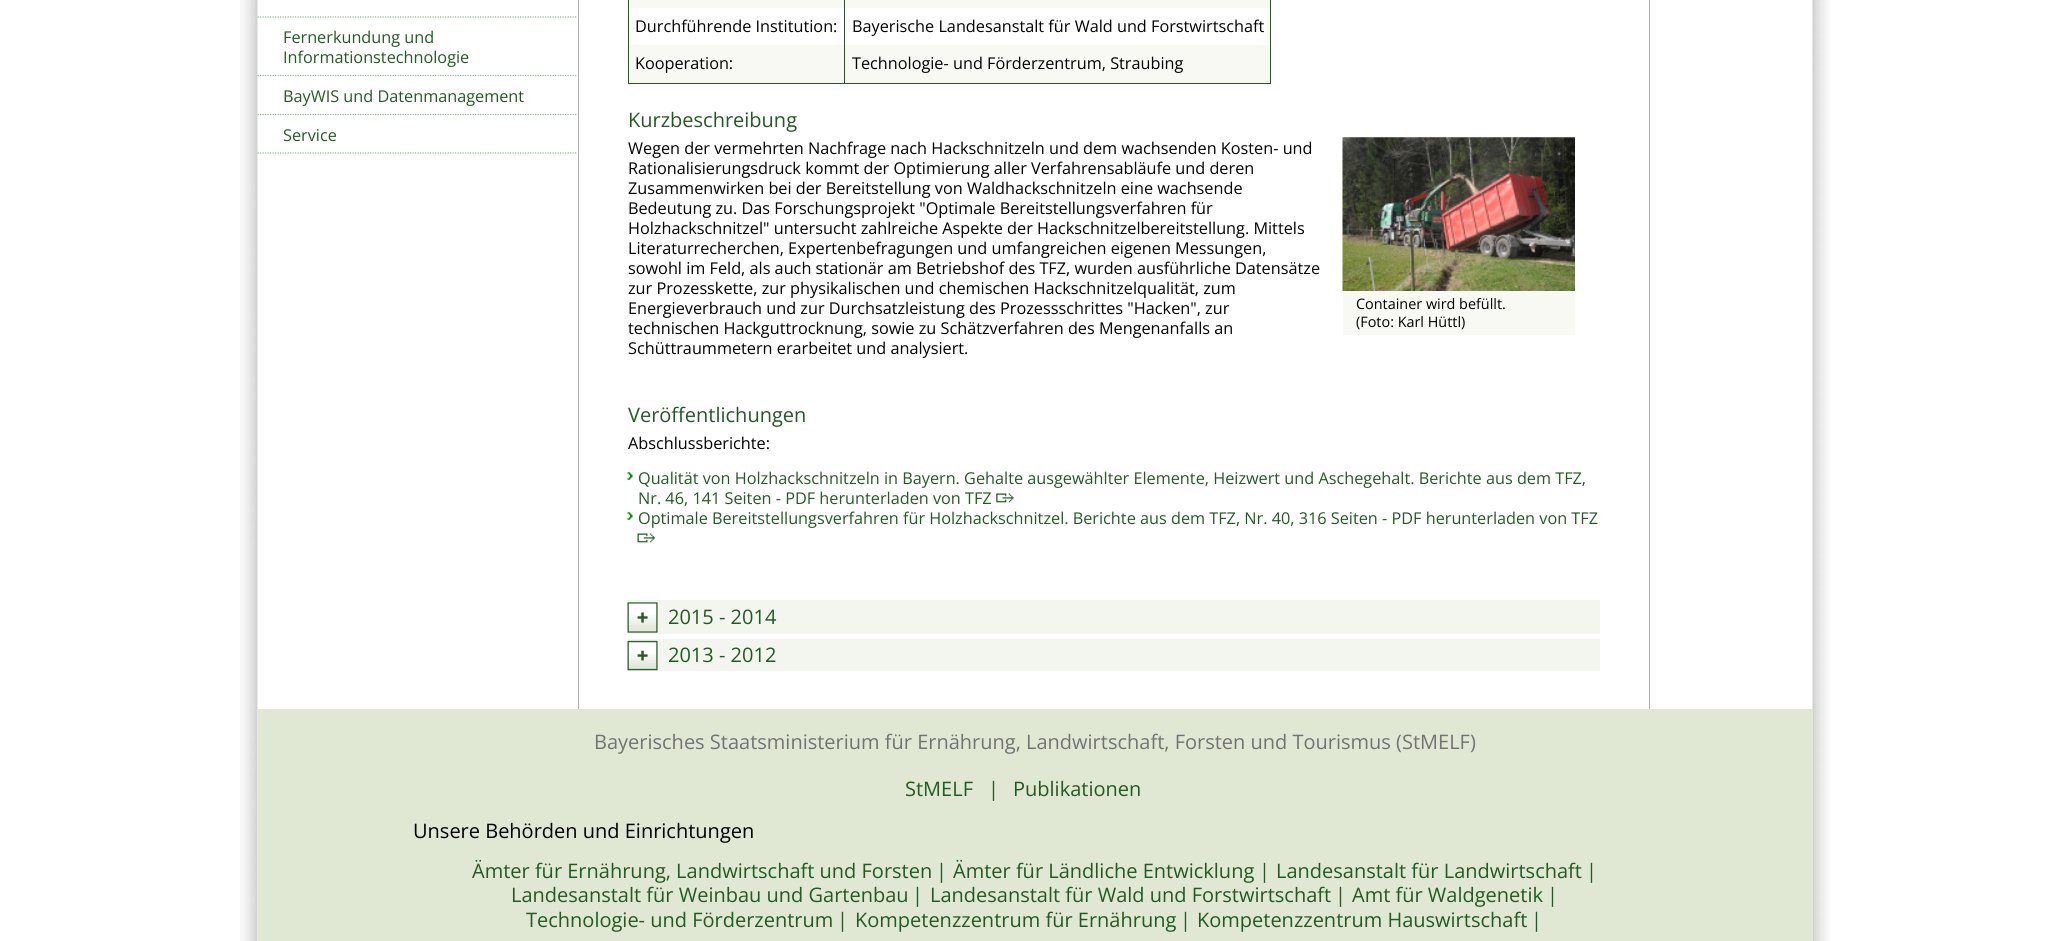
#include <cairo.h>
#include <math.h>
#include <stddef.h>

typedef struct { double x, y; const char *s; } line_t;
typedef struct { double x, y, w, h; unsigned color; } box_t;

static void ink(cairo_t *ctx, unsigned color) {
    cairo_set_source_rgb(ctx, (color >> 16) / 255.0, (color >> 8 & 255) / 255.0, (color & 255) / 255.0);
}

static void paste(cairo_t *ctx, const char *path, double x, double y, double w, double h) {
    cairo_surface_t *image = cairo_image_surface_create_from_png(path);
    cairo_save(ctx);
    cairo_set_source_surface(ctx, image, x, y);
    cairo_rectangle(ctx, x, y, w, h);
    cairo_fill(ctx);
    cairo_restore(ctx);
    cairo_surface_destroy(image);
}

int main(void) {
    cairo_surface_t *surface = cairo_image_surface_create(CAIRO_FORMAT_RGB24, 2070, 941);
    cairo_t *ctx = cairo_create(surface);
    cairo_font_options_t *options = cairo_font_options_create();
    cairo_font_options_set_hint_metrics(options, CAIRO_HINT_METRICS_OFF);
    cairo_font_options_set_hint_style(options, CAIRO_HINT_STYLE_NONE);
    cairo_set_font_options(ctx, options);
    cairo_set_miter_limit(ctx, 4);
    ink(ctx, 0xFFFFFF);
    cairo_paint(ctx);
    paste(ctx, "media/1.png", 240, 0, 18, 941);
    paste(ctx, "media/2.png", 1812, 0, 18, 941);
    cairo_new_path(ctx);
    cairo_move_to(ctx, 257.5, 17);
    cairo_line_to(ctx, 577.5, 17);
    ink(ctx, 0x99B299);
    cairo_set_line_width(ctx, 1.2);
    cairo_set_dash(ctx, (double[]){1.25, 1.25}, 2, 0);
    cairo_stroke(ctx);
    cairo_new_path(ctx);
    cairo_move_to(ctx, 257.5, 75.5);
    cairo_line_to(ctx, 577.5, 75.5);
    cairo_stroke(ctx);
    cairo_select_font_face(ctx, "Open Sans", CAIRO_FONT_SLANT_NORMAL, CAIRO_FONT_WEIGHT_NORMAL);
    cairo_set_font_size(ctx, 16.25);
    ink(ctx, 0x235A23);
    cairo_move_to(ctx, 283, 43);
    cairo_show_text(ctx, "Fernerkundung und");
    cairo_move_to(ctx, 283, 63);
    cairo_show_text(ctx, "Informationstechnologie");
    cairo_new_path(ctx);
    cairo_move_to(ctx, 257.5, 114.5);
    cairo_line_to(ctx, 577.5, 114.5);
    ink(ctx, 0x99B299);
    cairo_stroke(ctx);
    ink(ctx, 0x235A23);
    cairo_move_to(ctx, 283, 102);
    cairo_show_text(ctx, "BayWIS und Datenmanagement");
    cairo_new_path(ctx);
    cairo_move_to(ctx, 257.5, 153);
    cairo_line_to(ctx, 577.5, 153);
    ink(ctx, 0x99B299);
    cairo_stroke(ctx);
    ink(ctx, 0x235A23);
    cairo_move_to(ctx, 283, 141);
    cairo_show_text(ctx, "Service");
    {
        static const box_t items[] = {
            {1649, 0, 1, 709, 0xAEAEAE},
            {578, 0, 1, 709, 0xAEAEAE},
            {629, 0, 642, 8, 0xF7F9F2},
            {1270, 0, 1, 84, 0x235A23},
            {628, 83, 643, 1, 0x235A23},
        };
        for (size_t i = 0; i < sizeof items / sizeof *items; i++) {
            ink(ctx, items[i].color);
            cairo_rectangle(ctx, items[i].x, items[i].y, items[i].w, items[i].h);
            cairo_fill(ctx);
        }
    }
    ink(ctx, 0x000000);
    cairo_move_to(ctx, 635, 32);
    cairo_show_text(ctx, "Durchführende Institution:");
    cairo_move_to(ctx, 852, 32);
    cairo_show_text(ctx, "Bayerische Landesanstalt für Wald und Forstwirtschaft");
    ink(ctx, 0xF7F9F2);
    cairo_rectangle(ctx, 629, 45, 641, 38);
    cairo_fill(ctx);
    ink(ctx, 0x235A23);
    cairo_rectangle(ctx, 628, 0, 1, 84);
    cairo_fill(ctx);
    ink(ctx, 0x000000);
    cairo_move_to(ctx, 635, 69);
    cairo_show_text(ctx, "Kooperation:");
    ink(ctx, 0x235A23);
    cairo_rectangle(ctx, 844, 0, 1, 84);
    cairo_fill(ctx);
    ink(ctx, 0x000000);
    cairo_move_to(ctx, 852, 69);
    cairo_show_text(ctx, "Technologie- und Förderzentrum, Straubing");
    cairo_set_font_size(ctx, 20);
    ink(ctx, 0x235A23);
    cairo_move_to(ctx, 628, 127);
    cairo_show_text(ctx, "Kurzbeschreibung");
    cairo_set_font_size(ctx, 16.25);
    ink(ctx, 0x000000);
    {
        static const line_t items[] = {
            {628, 154, "Wegen der vermehrten Nachfrage nach Hackschnitzeln und dem wachsenden Kosten- und"},
            {628, 174, "Rationalisierungsdruck kommt der Optimierung aller Verfahrensabläufe und deren"},
            {628, 194, "Zusammenwirken bei der Bereitstellung von Waldhackschnitzeln eine wachsende"},
            {628, 214, "Bedeutung zu. Das Forschungsprojekt \"Optimale Bereitstellungsverfahren für"},
            {628, 234, "Holzhackschnitzel\" untersucht zahlreiche Aspekte der Hackschnitzelbereitstellung. Mittels"},
            {628, 254, "Literaturrecherchen, Expertenbefragungen und umfangreichen eigenen Messungen,"},
            {628, 274, "sowohl im Feld, als auch stationär am Betriebshof des TFZ, wurden ausführliche Datensätze"},
            {628, 294, "zur Prozesskette, zur physikalischen und chemischen Hackschnitzelqualität, zum"},
            {628, 314, "Energieverbrauch und zur Durchsatzleistung des Prozessschrittes \"Hacken\", zur"},
            {628, 334, "technischen Hackguttrocknung, sowie zu Schätzverfahren des Mengenanfalls an"},
            {628, 354, "Schüttraummetern erarbeitet und analysiert."},
        };
        for (size_t i = 0; i < sizeof items / sizeof *items; i++) {
            cairo_move_to(ctx, items[i].x, items[i].y);
            cairo_show_text(ctx, items[i].s);
        }
    }
    paste(ctx, "media/3.png", 1342, 137, 233, 154);
    ink(ctx, 0xF7F9F2);
    cairo_rectangle(ctx, 1343, 291, 232, 44);
    cairo_fill(ctx);
    cairo_set_font_size(ctx, 14.4);
    ink(ctx, 0x000000);
    cairo_move_to(ctx, 1356, 309);
    cairo_show_text(ctx, "Container wird befüllt.");
    cairo_move_to(ctx, 1356, 327);
    cairo_show_text(ctx, "(Foto: Karl Hüttl)");
    cairo_set_font_size(ctx, 20);
    ink(ctx, 0x235A23);
    cairo_move_to(ctx, 628, 422);
    cairo_show_text(ctx, "Veröffentlichungen");
    cairo_set_font_size(ctx, 16.25);
    ink(ctx, 0x000000);
    cairo_move_to(ctx, 628, 449);
    cairo_show_text(ctx, "Abschlussberichte:");
    paste(ctx, "media/4.png", 627, 472, 6, 8);
    ink(ctx, 0x235A23);
    cairo_move_to(ctx, 638, 484);
    cairo_show_text(ctx, "Qualität von Holzhackschnitzeln in Bayern. Gehalte ausgewählter Elemente, Heizwert und Aschegehalt. Berichte aus dem TFZ,");
    cairo_move_to(ctx, 638, 504);
    cairo_show_text(ctx, "Nr. 46, 141 Seiten - PDF herunterladen von TFZ");
    paste(ctx, "media/5.png", 996, 493, 18, 10);
    paste(ctx, "media/4.png", 627, 512, 6, 8);
    cairo_move_to(ctx, 638, 524);
    cairo_show_text(ctx, "Optimale Bereitstellungsverfahren für Holzhackschnitzel. Berichte aus dem TFZ, Nr. 40, 316 Seiten - PDF herunterladen von TFZ");
    paste(ctx, "media/6.png", 637, 533, 18, 10);
    ink(ctx, 0xF3F6EE);
    cairo_rectangle(ctx, 628, 600, 972, 34);
    cairo_fill(ctx);
    paste(ctx, "media/7.png", 627, 602, 31, 31);
    cairo_set_font_size(ctx, 20);
    ink(ctx, 0x235A23);
    cairo_move_to(ctx, 668, 624);
    cairo_show_text(ctx, "2015 - 2014");
    ink(ctx, 0xF3F6EE);
    cairo_rectangle(ctx, 628, 639, 972, 32);
    cairo_fill(ctx);
    paste(ctx, "media/8.png", 627, 640, 31, 31);
    ink(ctx, 0x235A23);
    cairo_move_to(ctx, 668, 662);
    cairo_show_text(ctx, "2013 - 2012");
    ink(ctx, 0xE0E8D4);
    cairo_rectangle(ctx, 258, 709, 1555, 232);
    cairo_fill(ctx);
    ink(ctx, 0x737373);
    cairo_move_to(ctx, 594, 749);
    cairo_show_text(ctx, "Bayerisches Staatsministerium für Ernährung, Landwirtschaft, Forsten und Tourismus (StMELF)");
    ink(ctx, 0x235A23);
    {
        static const line_t items[] = {
            {905, 796, "StMELF"},
            {988, 796, "|"},
            {1013, 796, "Publikationen"},
        };
        for (size_t i = 0; i < sizeof items / sizeof *items; i++) {
            cairo_move_to(ctx, items[i].x, items[i].y);
            cairo_show_text(ctx, items[i].s);
        }
    }
    ink(ctx, 0x000000);
    cairo_move_to(ctx, 413, 838);
    cairo_show_text(ctx, "Unsere Behörden und Einrichtungen");
    ink(ctx, 0x235A23);
    {
        static const line_t items[] = {
            {472, 878, "Ämter für Ernährung, Landwirtschaft und Forsten"},
            {936, 878, "|"},
            {953, 878, "Ämter für Ländliche Entwicklung"},
            {1259, 878, "|"},
            {1276, 878, "Landesanstalt für Landwirtschaft"},
            {1586, 878, "|"},
            {511, 902, "Landesanstalt für Weinbau und Gartenbau"},
            {912, 902, "|"},
            {930, 902, "Landesanstalt für Wald und Forstwirtschaft"},
            {1335, 902, "|"},
            {1352, 902, "Amt für Waldgenetik"},
            {1547, 902, "|"},
            {526, 927, "Technologie- und Förderzentrum"},
            {837, 927, "|"},
            {855, 927, "Kompetenzzentrum für Ernährung"},
            {1180, 927, "|"},
            {1197, 927, "Kompetenzzentrum Hauswirtschaft"},
            {1531, 927, "|"},
        };
        for (size_t i = 0; i < sizeof items / sizeof *items; i++) {
            cairo_move_to(ctx, items[i].x, items[i].y);
            cairo_show_text(ctx, items[i].s);
        }
    }
    cairo_surface_write_to_png(surface, "image.png");
    cairo_font_options_destroy(options);
    cairo_destroy(ctx);
    cairo_surface_destroy(surface);
    return 0;
}
